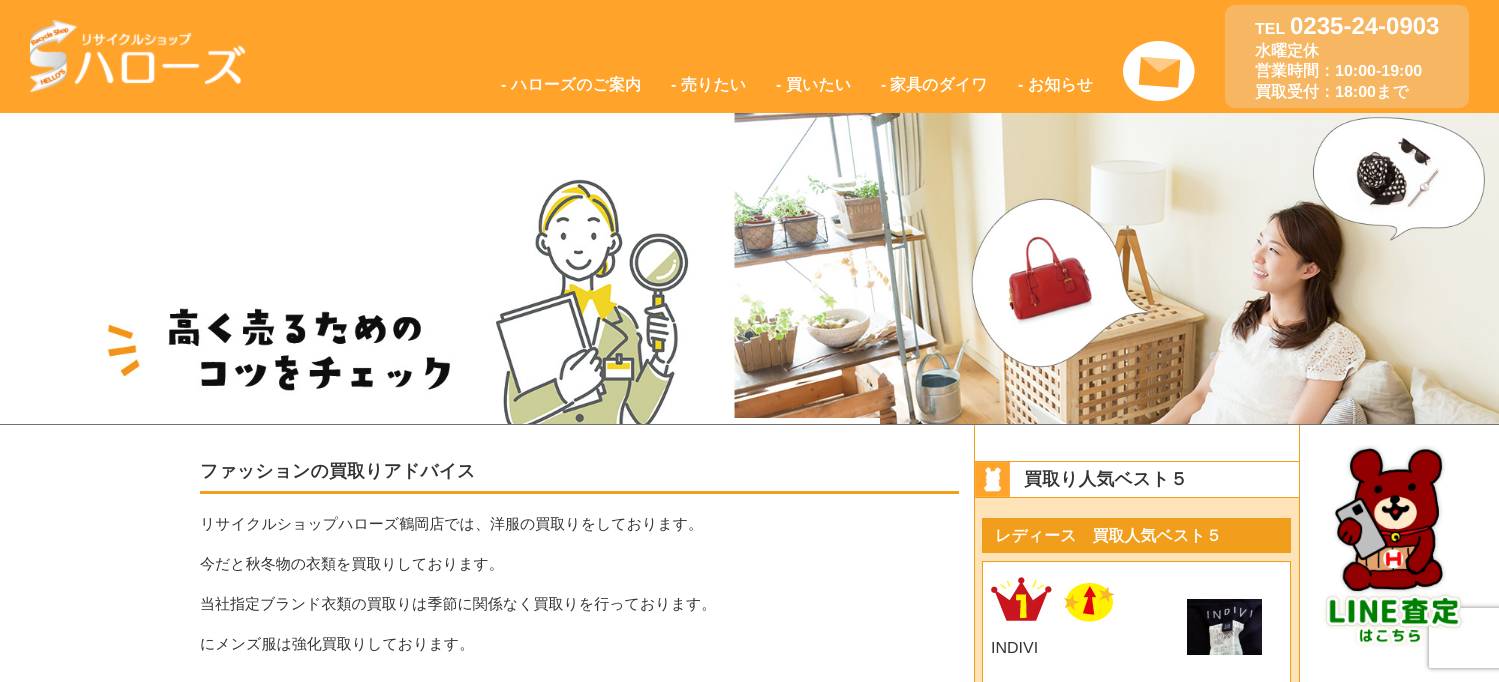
#include <cairo.h>
#include <math.h>
#include <stddef.h>

typedef struct { double x, y; const char *s; } line_t;
typedef struct { double x, y, w, h; unsigned color; } box_t;

static void ink(cairo_t *ctx, unsigned color) {
    cairo_set_source_rgb(ctx, (color >> 16) / 255.0, (color >> 8 & 255) / 255.0, (color & 255) / 255.0);
}

static void round_path(cairo_t *ctx, double x, double y, double w, double h, double r) {
    cairo_new_sub_path(ctx);
    cairo_arc(ctx, x + w - r, y + h - r, r, 0, M_PI / 2);
    cairo_arc(ctx, x + r, y + h - r, r, M_PI / 2, M_PI);
    cairo_arc(ctx, x + r, y + r, r, M_PI, 1.5 * M_PI);
    cairo_arc(ctx, x + w - r, y + r, r, 1.5 * M_PI, 2 * M_PI);
    cairo_close_path(ctx);
}

static void blur_box(cairo_t *ctx, double x, double y, double w, double h, double r, double blur, double alpha) {
    cairo_push_group_with_content(ctx, CAIRO_CONTENT_ALPHA);
    cairo_set_operator(ctx, CAIRO_OPERATOR_SOURCE);
    for (int i = 15; i >= -15 && fmin(w, h) + blur * i / 3 > 0; i -= 2) {
        double e = blur * i / 6;
        cairo_set_source_rgba(ctx, 0, 0, 0, alpha * erfc((i - 1) / 8.5) / 2);
        round_path(ctx, x - e, y - e, w + 2 * e, h + 2 * e, fmax(0, fmin(r + e + blur * .6, fmin(w, h) / 2 + e)));
        cairo_fill(ctx);
    }
    cairo_pattern_t *soft = cairo_pop_group(ctx);
    cairo_mask(ctx, soft);
    cairo_pattern_destroy(soft);
}

static void paste(cairo_t *ctx, const char *path, double x, double y, double w, double h) {
    cairo_surface_t *image = cairo_image_surface_create_from_png(path);
    cairo_save(ctx);
    cairo_set_source_surface(ctx, image, x, y);
    cairo_rectangle(ctx, x, y, w, h);
    cairo_fill(ctx);
    cairo_restore(ctx);
    cairo_surface_destroy(image);
}

int main(void) {
    cairo_surface_t *surface = cairo_image_surface_create(CAIRO_FORMAT_RGB24, 1499, 682);
    cairo_t *ctx = cairo_create(surface);
    cairo_font_options_t *options = cairo_font_options_create();
    cairo_font_options_set_hint_metrics(options, CAIRO_HINT_METRICS_OFF);
    cairo_font_options_set_hint_style(options, CAIRO_HINT_STYLE_NONE);
    cairo_set_font_options(ctx, options);
    cairo_set_miter_limit(ctx, 4);
    ink(ctx, 0xFFFFFF);
    cairo_paint(ctx);
    ink(ctx, 0xFFA32B);
    cairo_rectangle(ctx, 0, 0, 1499, 113);
    cairo_fill(ctx);
    paste(ctx, "media/1.png", 30, 20, 216, 72);
    cairo_select_font_face(ctx, "Liberation Sans", CAIRO_FONT_SLANT_NORMAL, CAIRO_FONT_WEIGHT_BOLD);
    cairo_set_font_size(ctx, 16);
    ink(ctx, 0xFFFFFF);
    cairo_move_to(ctx, 501, 90);
    cairo_show_text(ctx, "-");
    cairo_select_font_face(ctx, "WenQuanYi Zen Hei", CAIRO_FONT_SLANT_NORMAL, CAIRO_FONT_WEIGHT_BOLD);
    cairo_move_to(ctx, 511, 90);
    cairo_show_text(ctx, "ハローズのご案内");
    cairo_select_font_face(ctx, "Liberation Sans", CAIRO_FONT_SLANT_NORMAL, CAIRO_FONT_WEIGHT_BOLD);
    cairo_move_to(ctx, 671, 90);
    cairo_show_text(ctx, "-");
    cairo_select_font_face(ctx, "WenQuanYi Zen Hei", CAIRO_FONT_SLANT_NORMAL, CAIRO_FONT_WEIGHT_BOLD);
    cairo_move_to(ctx, 681, 90);
    cairo_show_text(ctx, "売りたい");
    cairo_select_font_face(ctx, "Liberation Sans", CAIRO_FONT_SLANT_NORMAL, CAIRO_FONT_WEIGHT_BOLD);
    cairo_move_to(ctx, 776, 90);
    cairo_show_text(ctx, "-");
    cairo_select_font_face(ctx, "WenQuanYi Zen Hei", CAIRO_FONT_SLANT_NORMAL, CAIRO_FONT_WEIGHT_BOLD);
    cairo_move_to(ctx, 786, 90);
    cairo_show_text(ctx, "買いたい");
    cairo_select_font_face(ctx, "Liberation Sans", CAIRO_FONT_SLANT_NORMAL, CAIRO_FONT_WEIGHT_BOLD);
    cairo_move_to(ctx, 881, 90);
    cairo_show_text(ctx, "-");
    cairo_select_font_face(ctx, "WenQuanYi Zen Hei", CAIRO_FONT_SLANT_NORMAL, CAIRO_FONT_WEIGHT_BOLD);
    cairo_move_to(ctx, 890, 90);
    cairo_show_text(ctx, "家具のダイワ");
    cairo_select_font_face(ctx, "Liberation Sans", CAIRO_FONT_SLANT_NORMAL, CAIRO_FONT_WEIGHT_BOLD);
    cairo_move_to(ctx, 1018, 90);
    cairo_show_text(ctx, "-");
    cairo_select_font_face(ctx, "WenQuanYi Zen Hei", CAIRO_FONT_SLANT_NORMAL, CAIRO_FONT_WEIGHT_BOLD);
    cairo_move_to(ctx, 1028, 90);
    cairo_show_text(ctx, "お知らせ");
    paste(ctx, "media/2.png", 1123, 41, 72, 61);
    ink(ctx, 0xF6B662);
    round_path(ctx, 1225, 5, 244, 103, 10);
    cairo_fill(ctx);
    cairo_select_font_face(ctx, "Liberation Sans", CAIRO_FONT_SLANT_NORMAL, CAIRO_FONT_WEIGHT_BOLD);
    ink(ctx, 0xFFFFFF);
    cairo_move_to(ctx, 1255, 34);
    cairo_show_text(ctx, "TEL");
    cairo_set_font_size(ctx, 24);
    cairo_move_to(ctx, 1290, 34);
    cairo_show_text(ctx, "0235-24-0903");
    cairo_select_font_face(ctx, "WenQuanYi Zen Hei", CAIRO_FONT_SLANT_NORMAL, CAIRO_FONT_WEIGHT_BOLD);
    cairo_set_font_size(ctx, 16);
    cairo_move_to(ctx, 1255, 56);
    cairo_show_text(ctx, "水曜定休");
    cairo_move_to(ctx, 1255, 76);
    cairo_show_text(ctx, "営業時間：");
    cairo_select_font_face(ctx, "Liberation Sans", CAIRO_FONT_SLANT_NORMAL, CAIRO_FONT_WEIGHT_BOLD);
    cairo_move_to(ctx, 1335, 76);
    cairo_show_text(ctx, "10:00-19:00");
    cairo_select_font_face(ctx, "WenQuanYi Zen Hei", CAIRO_FONT_SLANT_NORMAL, CAIRO_FONT_WEIGHT_BOLD);
    cairo_move_to(ctx, 1255, 97);
    cairo_show_text(ctx, "買取受付：");
    cairo_select_font_face(ctx, "Liberation Sans", CAIRO_FONT_SLANT_NORMAL, CAIRO_FONT_WEIGHT_BOLD);
    cairo_move_to(ctx, 1335, 97);
    cairo_show_text(ctx, "18:00");
    cairo_select_font_face(ctx, "WenQuanYi Zen Hei", CAIRO_FONT_SLANT_NORMAL, CAIRO_FONT_WEIGHT_BOLD);
    cairo_move_to(ctx, 1376, 97);
    cairo_show_text(ctx, "まで");
    ink(ctx, 0x707070);
    cairo_rectangle(ctx, 0, 424, 1499, 1);
    cairo_fill(ctx);
    paste(ctx, "media/3.png", 107, 113, 1392, 311);
    ink(ctx, 0xF29E1D);
    cairo_rectangle(ctx, 200, 491, 759, 3);
    cairo_fill(ctx);
    cairo_set_font_size(ctx, 18);
    ink(ctx, 0x333333);
    cairo_move_to(ctx, 200, 477);
    cairo_show_text(ctx, "ファッションの買取りアドバイス");
    cairo_select_font_face(ctx, "WenQuanYi Zen Hei Medium", CAIRO_FONT_SLANT_NORMAL, CAIRO_FONT_WEIGHT_NORMAL);
    cairo_set_font_size(ctx, 15);
    {
        static const line_t items[] = {
            {200, 529, "リサイクルショップハローズ鶴岡店では、洋服の買取りをしております。"},
            {200, 569, "今だと秋冬物の衣類を買取りしております。"},
            {200, 609, "当社指定ブランド衣類の買取りは季節に関係なく買取りを行っております。"},
            {200, 649, "にメンズ服は強化買取りしております。"},
        };
        for (size_t i = 0; i < sizeof items / sizeof *items; i++) {
            cairo_move_to(ctx, items[i].x, items[i].y);
            cairo_show_text(ctx, items[i].s);
        }
    }
    {
        static const box_t items[] = {
            {1299, 425, 1, 257, 0xF29E1D},
            {974, 425, 1, 257, 0xF29E1D},
            {975, 461, 324, 1, 0xF29E1D},
            {975, 497, 324, 1, 0xF29E1D},
        };
        for (size_t i = 0; i < sizeof items / sizeof *items; i++) {
            ink(ctx, items[i].color);
            cairo_rectangle(ctx, items[i].x, items[i].y, items[i].w, items[i].h);
            cairo_fill(ctx);
        }
    }
    paste(ctx, "media/4.png", 975, 462, 35, 35);
    cairo_select_font_face(ctx, "WenQuanYi Zen Hei", CAIRO_FONT_SLANT_NORMAL, CAIRO_FONT_WEIGHT_BOLD);
    cairo_set_font_size(ctx, 18);
    ink(ctx, 0x333333);
    cairo_move_to(ctx, 1024, 485);
    cairo_show_text(ctx, "買取り人気ベスト５");
    ink(ctx, 0xFEE3B9);
    cairo_rectangle(ctx, 975, 498, 324, 184);
    cairo_fill(ctx);
    ink(ctx, 0xF29E1D);
    cairo_rectangle(ctx, 982, 518, 309, 35);
    cairo_fill(ctx);
    cairo_set_font_size(ctx, 16);
    ink(ctx, 0xFFFFFF);
    cairo_move_to(ctx, 995, 541);
    cairo_show_text(ctx, "レディース　買取人気ベスト５");
    cairo_rectangle(ctx, 982.5, 561.5, 308, 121);
    cairo_fill_preserve(ctx);
    ink(ctx, 0xF29E1D);
    cairo_set_line_width(ctx, 1);
    cairo_stroke(ctx);
    paste(ctx, "media/5.png", 991, 577, 61, 44);
    paste(ctx, "media/6.png", 1064, 583, 51, 39);
    cairo_select_font_face(ctx, "Liberation Sans", CAIRO_FONT_SLANT_NORMAL, CAIRO_FONT_WEIGHT_NORMAL);
    ink(ctx, 0x333333);
    cairo_move_to(ctx, 991, 653);
    cairo_show_text(ctx, "INDIVI");
    paste(ctx, "media/7.png", 1187, 597, 75, 60);
    cairo_save(ctx);
    cairo_set_fill_rule(ctx, CAIRO_FILL_RULE_EVEN_ODD);
    cairo_new_path(ctx);
    cairo_move_to(ctx, 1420, 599);
    cairo_line_to(ctx, 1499, 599);
    cairo_line_to(ctx, 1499, 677);
    cairo_line_to(ctx, 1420, 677);
    cairo_close_path(ctx);
    cairo_move_to(ctx, 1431, 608);
    cairo_line_to(ctx, 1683, 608);
    cairo_curve_to(ctx, 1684, 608, 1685, 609, 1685, 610);
    cairo_line_to(ctx, 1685, 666);
    cairo_curve_to(ctx, 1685, 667, 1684, 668, 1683, 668);
    cairo_line_to(ctx, 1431, 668);
    cairo_curve_to(ctx, 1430, 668, 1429, 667, 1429, 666);
    cairo_line_to(ctx, 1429, 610);
    cairo_curve_to(ctx, 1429, 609, 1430, 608, 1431, 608);
    cairo_close_path(ctx);
    cairo_clip(ctx);
    ink(ctx, 0x808080);
    blur_box(ctx, 1429, 608, 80, 60, 2, 2.5, 1);
    cairo_restore(ctx);
    paste(ctx, "media/8.png", 1323, 445, 141, 202);
    cairo_surface_write_to_png(surface, "image.png");
    cairo_font_options_destroy(options);
    cairo_destroy(ctx);
    cairo_surface_destroy(surface);
    return 0;
}
